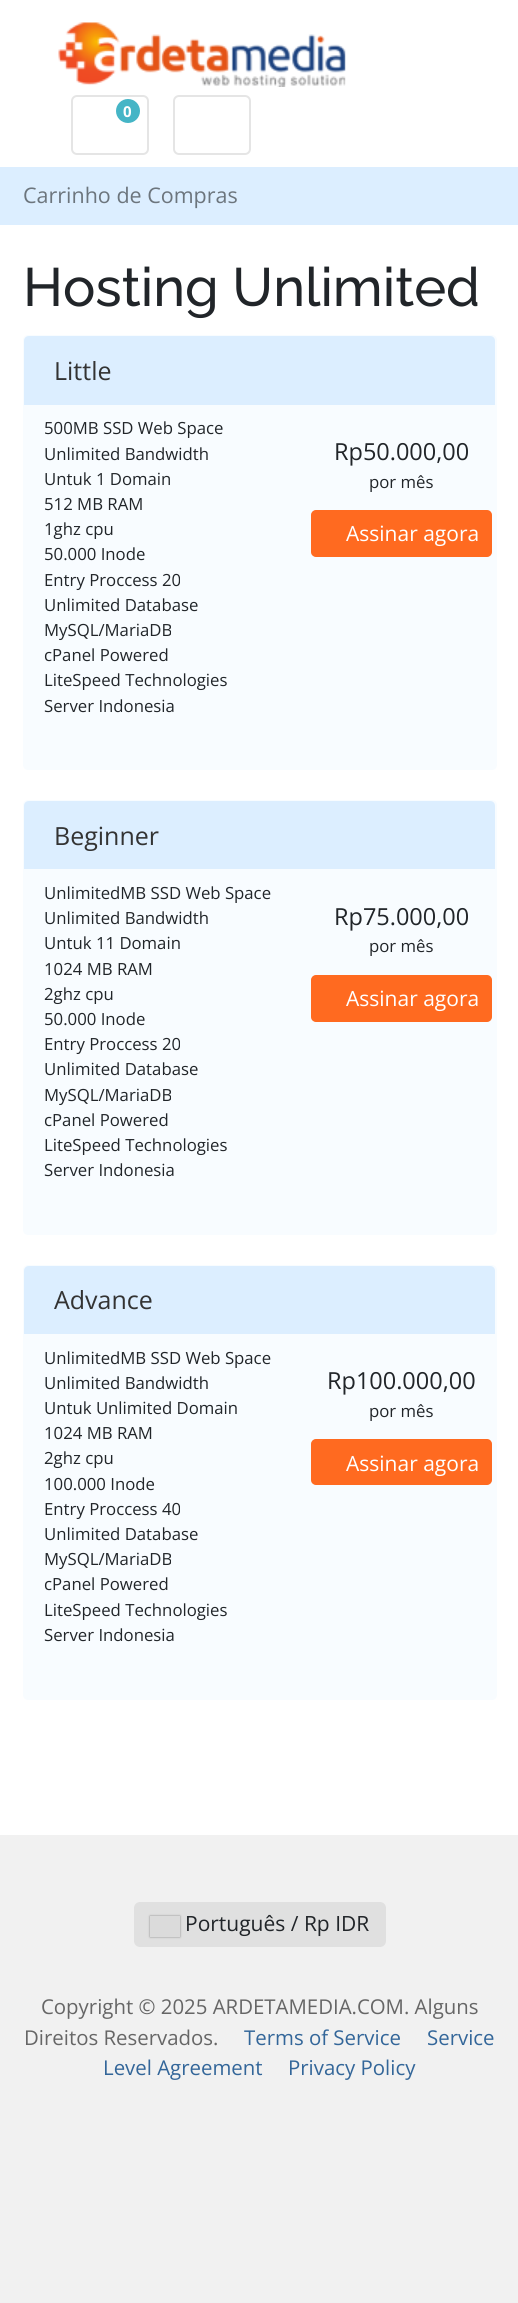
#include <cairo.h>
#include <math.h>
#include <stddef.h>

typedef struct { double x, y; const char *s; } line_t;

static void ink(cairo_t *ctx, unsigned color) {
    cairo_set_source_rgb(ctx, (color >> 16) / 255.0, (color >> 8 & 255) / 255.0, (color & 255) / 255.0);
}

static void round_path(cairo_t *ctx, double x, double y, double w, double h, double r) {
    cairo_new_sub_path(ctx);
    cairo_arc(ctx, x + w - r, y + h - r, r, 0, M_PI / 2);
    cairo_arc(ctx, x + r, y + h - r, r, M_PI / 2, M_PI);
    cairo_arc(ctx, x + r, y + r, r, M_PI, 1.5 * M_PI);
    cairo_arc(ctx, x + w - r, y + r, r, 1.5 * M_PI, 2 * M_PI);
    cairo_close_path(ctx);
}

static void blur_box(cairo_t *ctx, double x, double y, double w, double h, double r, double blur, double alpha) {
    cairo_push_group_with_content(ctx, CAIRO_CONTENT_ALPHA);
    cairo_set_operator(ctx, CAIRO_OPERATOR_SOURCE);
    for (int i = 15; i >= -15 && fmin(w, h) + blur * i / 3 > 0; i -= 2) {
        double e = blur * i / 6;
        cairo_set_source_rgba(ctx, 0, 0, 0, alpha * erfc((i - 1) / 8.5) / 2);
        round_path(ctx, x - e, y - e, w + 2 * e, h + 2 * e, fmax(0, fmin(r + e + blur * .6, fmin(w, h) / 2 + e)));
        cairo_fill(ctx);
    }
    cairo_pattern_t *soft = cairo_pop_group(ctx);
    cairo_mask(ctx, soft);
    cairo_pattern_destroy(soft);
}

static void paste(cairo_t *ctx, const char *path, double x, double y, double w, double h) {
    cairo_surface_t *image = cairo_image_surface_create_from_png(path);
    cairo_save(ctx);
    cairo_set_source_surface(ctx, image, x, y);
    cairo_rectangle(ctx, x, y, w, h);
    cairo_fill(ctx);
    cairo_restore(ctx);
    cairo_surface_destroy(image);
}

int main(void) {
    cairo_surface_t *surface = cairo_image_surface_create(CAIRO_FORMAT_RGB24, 518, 2303);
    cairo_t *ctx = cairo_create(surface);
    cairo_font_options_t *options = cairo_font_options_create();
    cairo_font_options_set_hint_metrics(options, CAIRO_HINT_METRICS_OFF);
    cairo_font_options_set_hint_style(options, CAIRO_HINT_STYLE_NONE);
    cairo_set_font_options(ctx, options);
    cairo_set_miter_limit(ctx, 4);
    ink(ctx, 0xF1F1F1);
    cairo_paint(ctx);
    ink(ctx, 0xFFFFFF);
    cairo_rectangle(ctx, 0, 0, 518, 167);
    cairo_fill(ctx);
    paste(ctx, "media/1.png", 58, 22, 288, 65);
    round_path(ctx, 72, 96, 76, 58, 5);
    ink(ctx, 0xE5E5E5);
    cairo_stroke(ctx);
    ink(ctx, 0x45B5C6);
    cairo_arc(ctx, 128, 111, 12, 0, 2 * M_PI);
    cairo_fill(ctx);
    cairo_select_font_face(ctx, "Open Sans", CAIRO_FONT_SLANT_NORMAL, CAIRO_FONT_WEIGHT_BOLD);
    cairo_set_font_size(ctx, 15);
    ink(ctx, 0xFFFFFF);
    cairo_move_to(ctx, 123, 117);
    cairo_show_text(ctx, "0");
    round_path(ctx, 174, 96, 76, 58, 5);
    ink(ctx, 0xE5E5E5);
    cairo_stroke(ctx);
    ink(ctx, 0xDCEEFF);
    cairo_rectangle(ctx, 0, 167, 518, 58);
    cairo_fill(ctx);
    cairo_select_font_face(ctx, "Open Sans", CAIRO_FONT_SLANT_NORMAL, CAIRO_FONT_WEIGHT_NORMAL);
    cairo_set_font_size(ctx, 21.5);
    ink(ctx, 0x6C757D);
    cairo_move_to(ctx, 23, 203);
    cairo_show_text(ctx, "Carrinho de Compras");
    ink(ctx, 0xFFFFFF);
    cairo_rectangle(ctx, 0, 225, 518, 1610);
    cairo_fill(ctx);
    cairo_select_font_face(ctx, "Raleway Medium", CAIRO_FONT_SLANT_NORMAL, CAIRO_FONT_WEIGHT_NORMAL);
    cairo_set_font_size(ctx, 54);
    ink(ctx, 0x212529);
    cairo_move_to(ctx, 23, 306);
    cairo_show_text(ctx, "Hosting Unlimited");
    ink(ctx, 0xF8FCFF);
    round_path(ctx, 23, 335, 474, 435, 5);
    cairo_fill(ctx);
    ink(ctx, 0xDCEEFF);
    cairo_new_path(ctx);
    cairo_move_to(ctx, 29, 336);
    cairo_line_to(ctx, 490, 336);
    cairo_curve_to(ctx, 493, 336, 495, 338, 495, 341);
    cairo_line_to(ctx, 495, 405);
    cairo_line_to(ctx, 24, 405);
    cairo_line_to(ctx, 24, 341);
    cairo_curve_to(ctx, 24, 338, 26, 336, 29, 336);
    cairo_close_path(ctx);
    cairo_fill(ctx);
    cairo_select_font_face(ctx, "Open Sans", CAIRO_FONT_SLANT_NORMAL, CAIRO_FONT_WEIGHT_NORMAL);
    cairo_set_font_size(ctx, 25);
    ink(ctx, 0x333333);
    cairo_move_to(ctx, 54, 380);
    cairo_show_text(ctx, "Little");
    cairo_set_font_size(ctx, 16.75);
    ink(ctx, 0x212529);
    {
        static const line_t items[] = {
            {44, 434, "500MB SSD Web Space"},
            {44, 460, "Unlimited Bandwidth"},
            {44, 485, "Untuk 1 Domain"},
            {44, 510, "512 MB RAM"},
            {44, 535, "1ghz cpu"},
            {44, 560, "50.000 Inode"},
            {44, 586, "Entry Proccess 20"},
            {44, 611, "Unlimited Database"},
            {44, 636, "MySQL/MariaDB"},
            {44, 661, "cPanel Powered"},
            {44, 686, "LiteSpeed Technologies"},
            {44, 712, "Server Indonesia"},
        };
        for (size_t i = 0; i < sizeof items / sizeof *items; i++) {
            cairo_move_to(ctx, items[i].x, items[i].y);
            cairo_show_text(ctx, items[i].s);
        }
    }
    cairo_set_font_size(ctx, 23.5);
    cairo_move_to(ctx, 334, 460);
    cairo_show_text(ctx, "Rp50.000,00");
    cairo_set_font_size(ctx, 16.75);
    cairo_move_to(ctx, 369, 488);
    cairo_show_text(ctx, "por mês");
    ink(ctx, 0xFF6A20);
    round_path(ctx, 312, 511, 179, 45, 4);
    cairo_fill_preserve(ctx);
    cairo_stroke(ctx);
    cairo_set_font_size(ctx, 21);
    ink(ctx, 0xFFFFFF);
    cairo_move_to(ctx, 346, 541);
    cairo_show_text(ctx, "Assinar agora");
    ink(ctx, 0xF8FCFF);
    round_path(ctx, 23, 800, 474, 435, 5);
    cairo_fill(ctx);
    ink(ctx, 0xDCEEFF);
    cairo_new_path(ctx);
    cairo_move_to(ctx, 29, 801);
    cairo_line_to(ctx, 490, 801);
    cairo_curve_to(ctx, 493, 801, 495, 803, 495, 806);
    cairo_line_to(ctx, 495, 869);
    cairo_line_to(ctx, 24, 869);
    cairo_line_to(ctx, 24, 806);
    cairo_curve_to(ctx, 24, 803, 26, 801, 29, 801);
    cairo_close_path(ctx);
    cairo_fill(ctx);
    cairo_set_font_size(ctx, 25);
    ink(ctx, 0x333333);
    cairo_move_to(ctx, 54, 845);
    cairo_show_text(ctx, "Beginner");
    cairo_set_font_size(ctx, 16.75);
    ink(ctx, 0x212529);
    {
        static const line_t items[] = {
            {44, 899, "UnlimitedMB SSD Web Space"},
            {44, 924, "Unlimited Bandwidth"},
            {44, 949, "Untuk 11 Domain"},
            {44, 975, "1024 MB RAM"},
            {44, 1000, "2ghz cpu"},
            {44, 1025, "50.000 Inode"},
            {44, 1050, "Entry Proccess 20"},
            {44, 1075, "Unlimited Database"},
            {44, 1101, "MySQL/MariaDB"},
            {44, 1126, "cPanel Powered"},
            {44, 1151, "LiteSpeed Technologies"},
            {44, 1176, "Server Indonesia"},
        };
        for (size_t i = 0; i < sizeof items / sizeof *items; i++) {
            cairo_move_to(ctx, items[i].x, items[i].y);
            cairo_show_text(ctx, items[i].s);
        }
    }
    cairo_set_font_size(ctx, 23.5);
    cairo_move_to(ctx, 334, 925);
    cairo_show_text(ctx, "Rp75.000,00");
    cairo_set_font_size(ctx, 16.75);
    cairo_move_to(ctx, 369, 952);
    cairo_show_text(ctx, "por mês");
    ink(ctx, 0xFF6A20);
    round_path(ctx, 312, 976, 179, 45, 4);
    cairo_fill_preserve(ctx);
    cairo_stroke(ctx);
    cairo_set_font_size(ctx, 21);
    ink(ctx, 0xFFFFFF);
    cairo_move_to(ctx, 346, 1006);
    cairo_show_text(ctx, "Assinar agora");
    ink(ctx, 0xF8FCFF);
    round_path(ctx, 23, 1265, 474, 435, 5);
    cairo_fill(ctx);
    ink(ctx, 0xDCEEFF);
    cairo_new_path(ctx);
    cairo_move_to(ctx, 29, 1266);
    cairo_line_to(ctx, 490, 1266);
    cairo_curve_to(ctx, 493, 1266, 495, 1268, 495, 1271);
    cairo_line_to(ctx, 495, 1334);
    cairo_line_to(ctx, 24, 1334);
    cairo_line_to(ctx, 24, 1271);
    cairo_curve_to(ctx, 24, 1268, 26, 1266, 29, 1266);
    cairo_close_path(ctx);
    cairo_fill(ctx);
    cairo_set_font_size(ctx, 25);
    ink(ctx, 0x333333);
    cairo_move_to(ctx, 54, 1309);
    cairo_show_text(ctx, "Advance");
    cairo_set_font_size(ctx, 16.75);
    ink(ctx, 0x212529);
    {
        static const line_t items[] = {
            {44, 1364, "UnlimitedMB SSD Web Space"},
            {44, 1389, "Unlimited Bandwidth"},
            {44, 1414, "Untuk Unlimited Domain"},
            {44, 1439, "1024 MB RAM"},
            {44, 1464, "2ghz cpu"},
            {44, 1490, "100.000 Inode"},
            {44, 1515, "Entry Proccess 40"},
            {44, 1540, "Unlimited Database"},
            {44, 1565, "MySQL/MariaDB"},
            {44, 1590, "cPanel Powered"},
            {44, 1616, "LiteSpeed Technologies"},
            {44, 1641, "Server Indonesia"},
        };
        for (size_t i = 0; i < sizeof items / sizeof *items; i++) {
            cairo_move_to(ctx, items[i].x, items[i].y);
            cairo_show_text(ctx, items[i].s);
        }
    }
    cairo_set_font_size(ctx, 23.5);
    cairo_move_to(ctx, 327, 1389);
    cairo_show_text(ctx, "Rp100.000,00");
    cairo_set_font_size(ctx, 16.75);
    cairo_move_to(ctx, 369, 1417);
    cairo_show_text(ctx, "por mês");
    ink(ctx, 0xFF6A20);
    round_path(ctx, 312, 1440, 179, 44, 4);
    cairo_fill_preserve(ctx);
    cairo_stroke(ctx);
    cairo_set_font_size(ctx, 21);
    ink(ctx, 0xFFFFFF);
    cairo_move_to(ctx, 346, 1471);
    cairo_show_text(ctx, "Assinar agora");
    ink(ctx, 0xE0E0E0);
    round_path(ctx, 134, 1902, 252, 45, 6);
    cairo_fill(ctx);
    ink(ctx, 0x888888);
    blur_box(ctx, 150, 1916, 30, 21, 0, 1, 1);
    ink(ctx, 0xDBDBDB);
    cairo_rectangle(ctx, 150, 1916, 30, 21);
    cairo_fill(ctx);
    ink(ctx, 0x212529);
    cairo_move_to(ctx, 185, 1931);
    cairo_show_text(ctx, "Português / Rp IDR");
    cairo_set_font_size(ctx, 20.4);
    ink(ctx, 0x666666);
    cairo_move_to(ctx, 41, 2014);
    cairo_show_text(ctx, "Copyright © 2025 ARDETAMEDIA.COM. Alguns");
    cairo_move_to(ctx, 24, 2045);
    cairo_show_text(ctx, "Direitos Reservados.");
    ink(ctx, 0x336699);
    {
        static const line_t items[] = {
            {244, 2045, "Terms of Service"},
            {427, 2045, "Service"},
            {103, 2075, "Level Agreement"},
            {288, 2075, "Privacy Policy"},
        };
        for (size_t i = 0; i < sizeof items / sizeof *items; i++) {
            cairo_move_to(ctx, items[i].x, items[i].y);
            cairo_show_text(ctx, items[i].s);
        }
    }
    cairo_surface_write_to_png(surface, "image.png");
    cairo_font_options_destroy(options);
    cairo_destroy(ctx);
    cairo_surface_destroy(surface);
    return 0;
}
